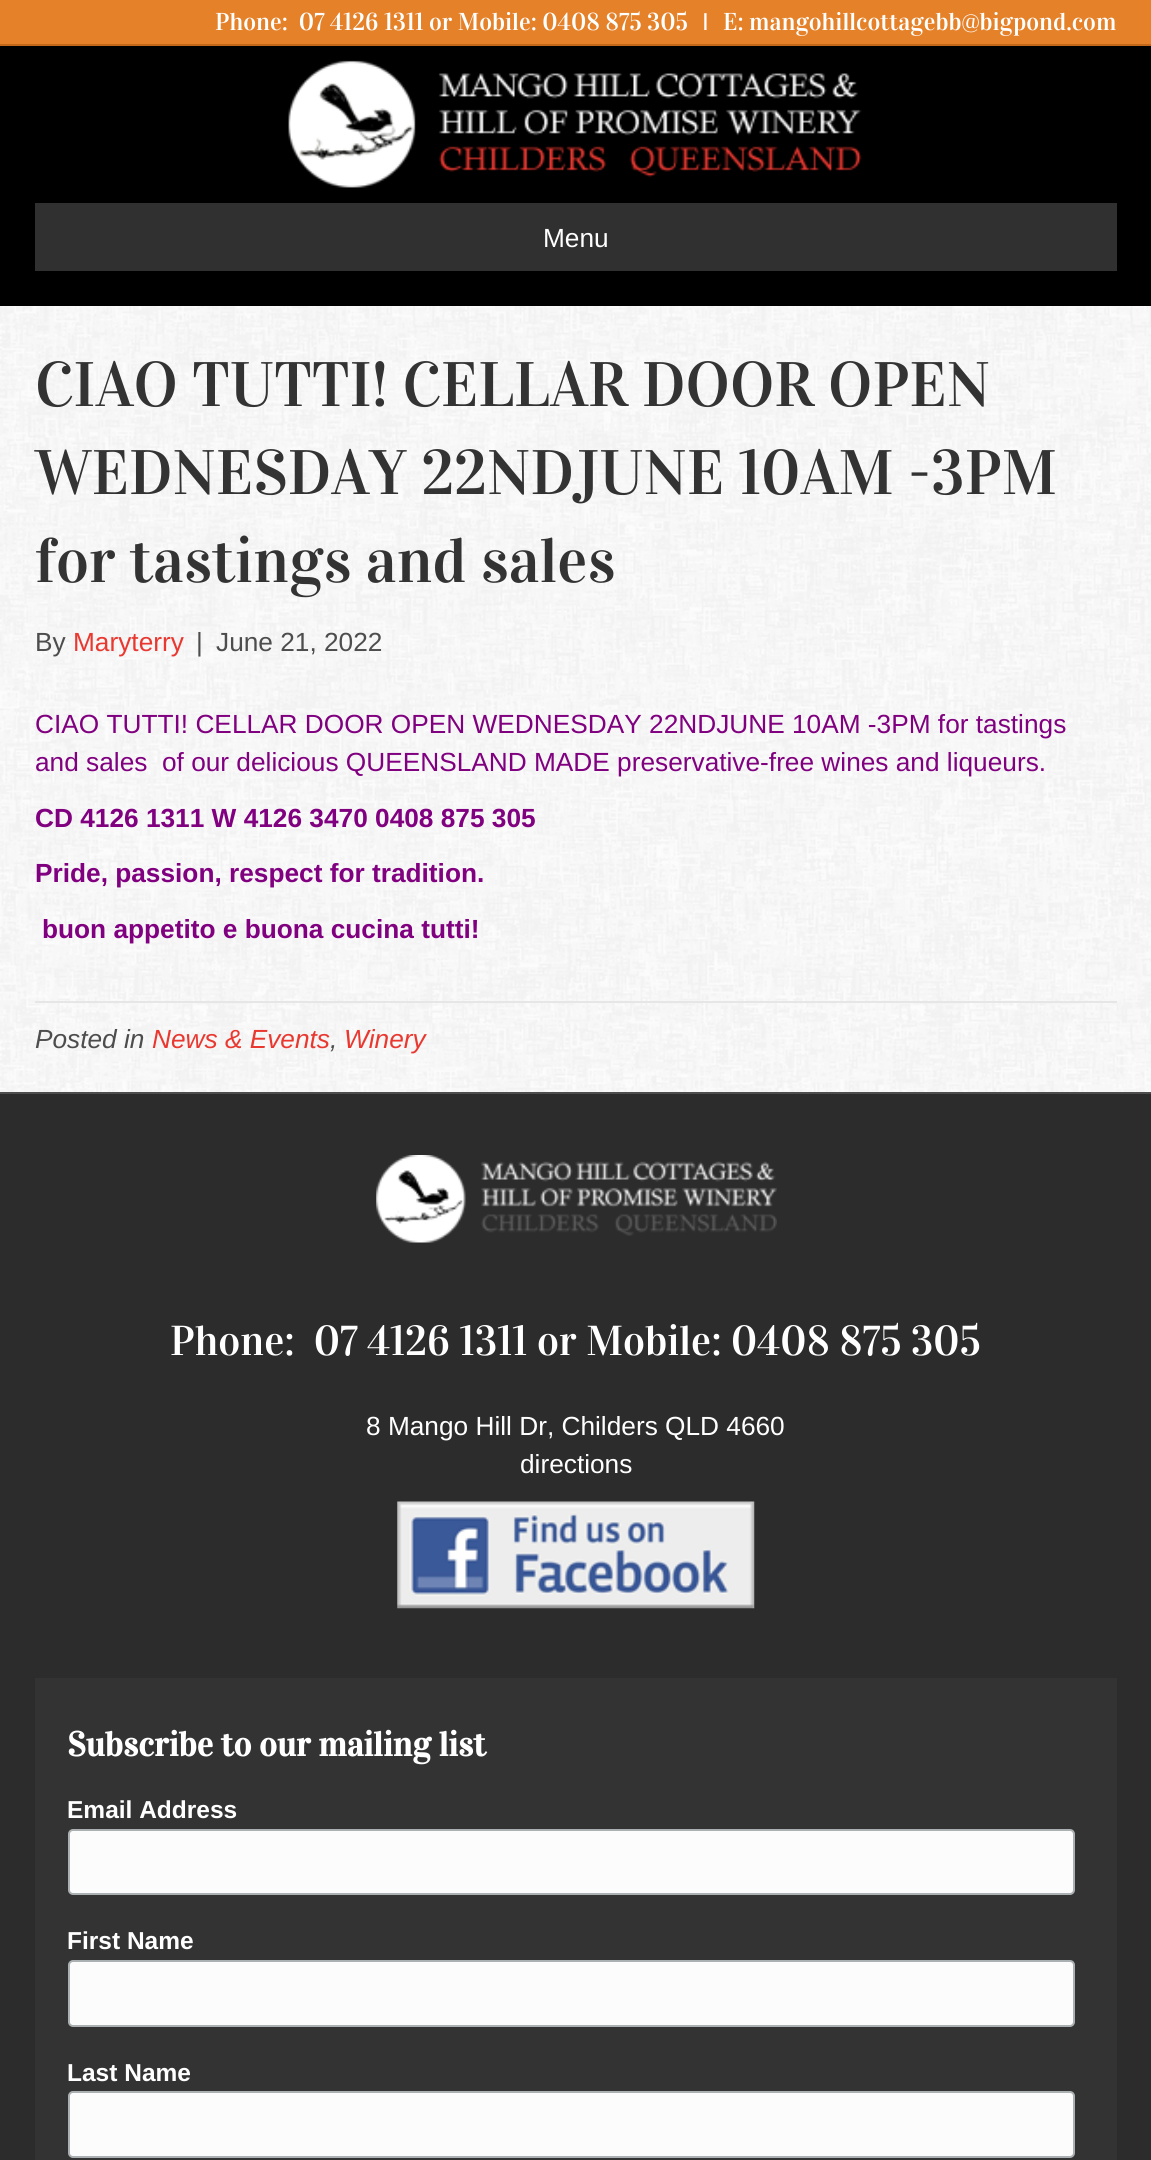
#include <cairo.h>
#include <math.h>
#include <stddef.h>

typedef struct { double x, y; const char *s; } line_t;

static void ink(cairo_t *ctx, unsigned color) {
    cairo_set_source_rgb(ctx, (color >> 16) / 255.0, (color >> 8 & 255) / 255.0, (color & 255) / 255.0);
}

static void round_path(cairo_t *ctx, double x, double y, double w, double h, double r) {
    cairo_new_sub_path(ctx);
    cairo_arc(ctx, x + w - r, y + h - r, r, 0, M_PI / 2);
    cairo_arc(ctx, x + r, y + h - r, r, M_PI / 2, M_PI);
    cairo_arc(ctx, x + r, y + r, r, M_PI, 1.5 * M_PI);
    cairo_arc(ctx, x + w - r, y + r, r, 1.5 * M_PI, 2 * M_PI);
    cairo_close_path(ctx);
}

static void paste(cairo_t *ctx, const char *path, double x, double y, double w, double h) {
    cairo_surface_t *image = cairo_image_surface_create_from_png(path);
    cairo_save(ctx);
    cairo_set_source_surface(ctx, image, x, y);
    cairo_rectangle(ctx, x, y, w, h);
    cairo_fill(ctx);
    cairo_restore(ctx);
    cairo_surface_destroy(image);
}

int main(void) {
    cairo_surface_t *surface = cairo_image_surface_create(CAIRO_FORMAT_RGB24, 1151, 2160);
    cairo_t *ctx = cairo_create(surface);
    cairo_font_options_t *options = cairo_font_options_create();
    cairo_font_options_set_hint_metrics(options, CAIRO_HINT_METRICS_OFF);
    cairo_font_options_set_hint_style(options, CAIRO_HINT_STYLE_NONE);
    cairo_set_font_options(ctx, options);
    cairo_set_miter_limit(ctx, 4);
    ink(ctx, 0xFFFFFF);
    cairo_paint(ctx);
    ink(ctx, 0xE58129);
    cairo_rectangle(ctx, 0, 0, 1151, 44);
    cairo_fill(ctx);
    ink(ctx, 0xC36818);
    cairo_rectangle(ctx, 0, 44, 1151, 2);
    cairo_fill(ctx);
    cairo_select_font_face(ctx, "Vidaloka", CAIRO_FONT_SLANT_NORMAL, CAIRO_FONT_WEIGHT_NORMAL);
    cairo_set_font_size(ctx, 24.5);
    ink(ctx, 0xFFFFFF);
    cairo_move_to(ctx, 215, 30);
    cairo_show_text(ctx, "Phone:  07 4126 1311 or Mobile: 0408 875 305");
    cairo_select_font_face(ctx, "Liberation Sans", CAIRO_FONT_SLANT_NORMAL, CAIRO_FONT_WEIGHT_NORMAL);
    cairo_move_to(ctx, 702, 30);
    cairo_show_text(ctx, "I");
    cairo_select_font_face(ctx, "Vidaloka", CAIRO_FONT_SLANT_NORMAL, CAIRO_FONT_WEIGHT_NORMAL);
    cairo_move_to(ctx, 723, 30);
    cairo_show_text(ctx, "E: mangohillcottagebb@bigpond.com");
    ink(ctx, 0x000000);
    cairo_rectangle(ctx, 0, 46, 1151, 260);
    cairo_fill(ctx);
    paste(ctx, "media/1.png", 288, 60, 574, 128);
    ink(ctx, 0x303030);
    cairo_rectangle(ctx, 35, 203, 1082, 68);
    cairo_fill(ctx);
    cairo_select_font_face(ctx, "Liberation Sans", CAIRO_FONT_SLANT_NORMAL, CAIRO_FONT_WEIGHT_NORMAL);
    cairo_set_font_size(ctx, 26.25);
    ink(ctx, 0xFFFFFF);
    cairo_move_to(ctx, 543, 247);
    cairo_show_text(ctx, "Menu");
    paste(ctx, "media/2.png", 0, 306, 1151, 786);
    cairo_select_font_face(ctx, "Vidaloka", CAIRO_FONT_SLANT_NORMAL, CAIRO_FONT_WEIGHT_NORMAL);
    cairo_set_font_size(ctx, 63);
    ink(ctx, 0x333333);
    {
        static const line_t items[] = {
            {35, 406, "CIAO TUTTI! CELLAR DOOR OPEN"},
            {35, 494, "WEDNESDAY 22NDJUNE 10AM -3PM"},
            {35, 582, "for tastings and sales"},
        };
        for (size_t i = 0; i < sizeof items / sizeof *items; i++) {
            cairo_move_to(ctx, items[i].x, items[i].y);
            cairo_show_text(ctx, items[i].s);
        }
    }
    cairo_select_font_face(ctx, "Liberation Sans", CAIRO_FONT_SLANT_NORMAL, CAIRO_FONT_WEIGHT_NORMAL);
    cairo_set_font_size(ctx, 26.25);
    ink(ctx, 0x4D4D4D);
    cairo_move_to(ctx, 35, 651);
    cairo_show_text(ctx, "By");
    ink(ctx, 0xE93830);
    cairo_move_to(ctx, 73, 651);
    cairo_show_text(ctx, "Maryterry");
    ink(ctx, 0x4D4D4D);
    cairo_move_to(ctx, 196, 651);
    cairo_show_text(ctx, "|");
    cairo_move_to(ctx, 216, 651);
    cairo_show_text(ctx, "June 21, 2022");
    ink(ctx, 0x800080);
    cairo_move_to(ctx, 35, 733);
    cairo_show_text(ctx, "CIAO TUTTI! CELLAR DOOR OPEN WEDNESDAY 22NDJUNE 10AM -3PM for tastings");
    cairo_move_to(ctx, 35, 771);
    cairo_show_text(ctx, "and sales  of our delicious QUEENSLAND MADE preservative-free wines and liqueurs.");
    cairo_select_font_face(ctx, "Liberation Sans", CAIRO_FONT_SLANT_NORMAL, CAIRO_FONT_WEIGHT_BOLD);
    {
        static const line_t items[] = {
            {35, 827, "CD 4126 1311 W 4126 3470 0408 875 305"},
            {35, 882, "Pride, passion, respect for tradition."},
            {42, 938, "buon appetito e buona cucina tutti!"},
        };
        for (size_t i = 0; i < sizeof items / sizeof *items; i++) {
            cairo_move_to(ctx, items[i].x, items[i].y);
            cairo_show_text(ctx, items[i].s);
        }
    }
    ink(ctx, 0xE6E6E6);
    cairo_rectangle(ctx, 35, 1001, 1082, 2);
    cairo_fill(ctx);
    cairo_select_font_face(ctx, "Liberation Sans", CAIRO_FONT_SLANT_ITALIC, CAIRO_FONT_WEIGHT_NORMAL);
    ink(ctx, 0x4D4D4D);
    cairo_move_to(ctx, 35, 1048);
    cairo_show_text(ctx, "Posted in");
    ink(ctx, 0xE93830);
    cairo_move_to(ctx, 152, 1048);
    cairo_show_text(ctx, "News & Events");
    ink(ctx, 0x4D4D4D);
    cairo_move_to(ctx, 330, 1048);
    cairo_show_text(ctx, ",");
    ink(ctx, 0xE93830);
    cairo_move_to(ctx, 344, 1048);
    cairo_show_text(ctx, "Winery");
    ink(ctx, 0x2C2C2C);
    cairo_rectangle(ctx, 0, 1094, 1151, 1066);
    cairo_fill(ctx);
    ink(ctx, 0x4D4D4D);
    cairo_rectangle(ctx, 0, 1092, 1151, 2);
    cairo_fill(ctx);
    paste(ctx, "media/3.png", 376, 1155, 401, 88);
    cairo_select_font_face(ctx, "Vidaloka", CAIRO_FONT_SLANT_NORMAL, CAIRO_FONT_WEIGHT_NORMAL);
    cairo_set_font_size(ctx, 42);
    ink(ctx, 0xFFFFFF);
    cairo_move_to(ctx, 170, 1355);
    cairo_show_text(ctx, "Phone:  07 4126 1311 or Mobile: 0408 875 305");
    cairo_select_font_face(ctx, "Liberation Sans", CAIRO_FONT_SLANT_NORMAL, CAIRO_FONT_WEIGHT_NORMAL);
    cairo_set_font_size(ctx, 26.25);
    cairo_move_to(ctx, 366, 1435);
    cairo_show_text(ctx, "8 Mango Hill Dr, Childers QLD 4660");
    cairo_move_to(ctx, 520, 1473);
    cairo_show_text(ctx, "directions");
    paste(ctx, "media/4.png", 397, 1501, 358, 108);
    ink(ctx, 0x333333);
    cairo_rectangle(ctx, 35, 1678, 1082, 482);
    cairo_fill(ctx);
    cairo_select_font_face(ctx, "Vidaloka", CAIRO_FONT_SLANT_NORMAL, CAIRO_FONT_WEIGHT_BOLD);
    cairo_set_font_size(ctx, 34.25);
    ink(ctx, 0xFFFFFF);
    cairo_move_to(ctx, 67, 1756);
    cairo_show_text(ctx, "Subscribe to our mailing list");
    cairo_select_font_face(ctx, "Liberation Sans", CAIRO_FONT_SLANT_NORMAL, CAIRO_FONT_WEIGHT_BOLD);
    cairo_set_font_size(ctx, 24.5);
    cairo_move_to(ctx, 67, 1818);
    cairo_show_text(ctx, "Email Address");
    ink(ctx, 0xFCFCFC);
    round_path(ctx, 69, 1830, 1005, 64, 4);
    cairo_fill_preserve(ctx);
    ink(ctx, 0xABB0B2);
    cairo_stroke(ctx);
    ink(ctx, 0xFFFFFF);
    cairo_move_to(ctx, 67, 1949);
    cairo_show_text(ctx, "First Name");
    ink(ctx, 0xFCFCFC);
    round_path(ctx, 69, 1961, 1005, 65, 4);
    cairo_fill_preserve(ctx);
    ink(ctx, 0xABB0B2);
    cairo_stroke(ctx);
    ink(ctx, 0xFFFFFF);
    cairo_move_to(ctx, 67, 2081);
    cairo_show_text(ctx, "Last Name");
    ink(ctx, 0xFCFCFC);
    round_path(ctx, 69, 2092, 1005, 65, 4);
    cairo_fill_preserve(ctx);
    ink(ctx, 0xABB0B2);
    cairo_stroke(ctx);
    cairo_surface_write_to_png(surface, "image.png");
    cairo_font_options_destroy(options);
    cairo_destroy(ctx);
    cairo_surface_destroy(surface);
    return 0;
}
